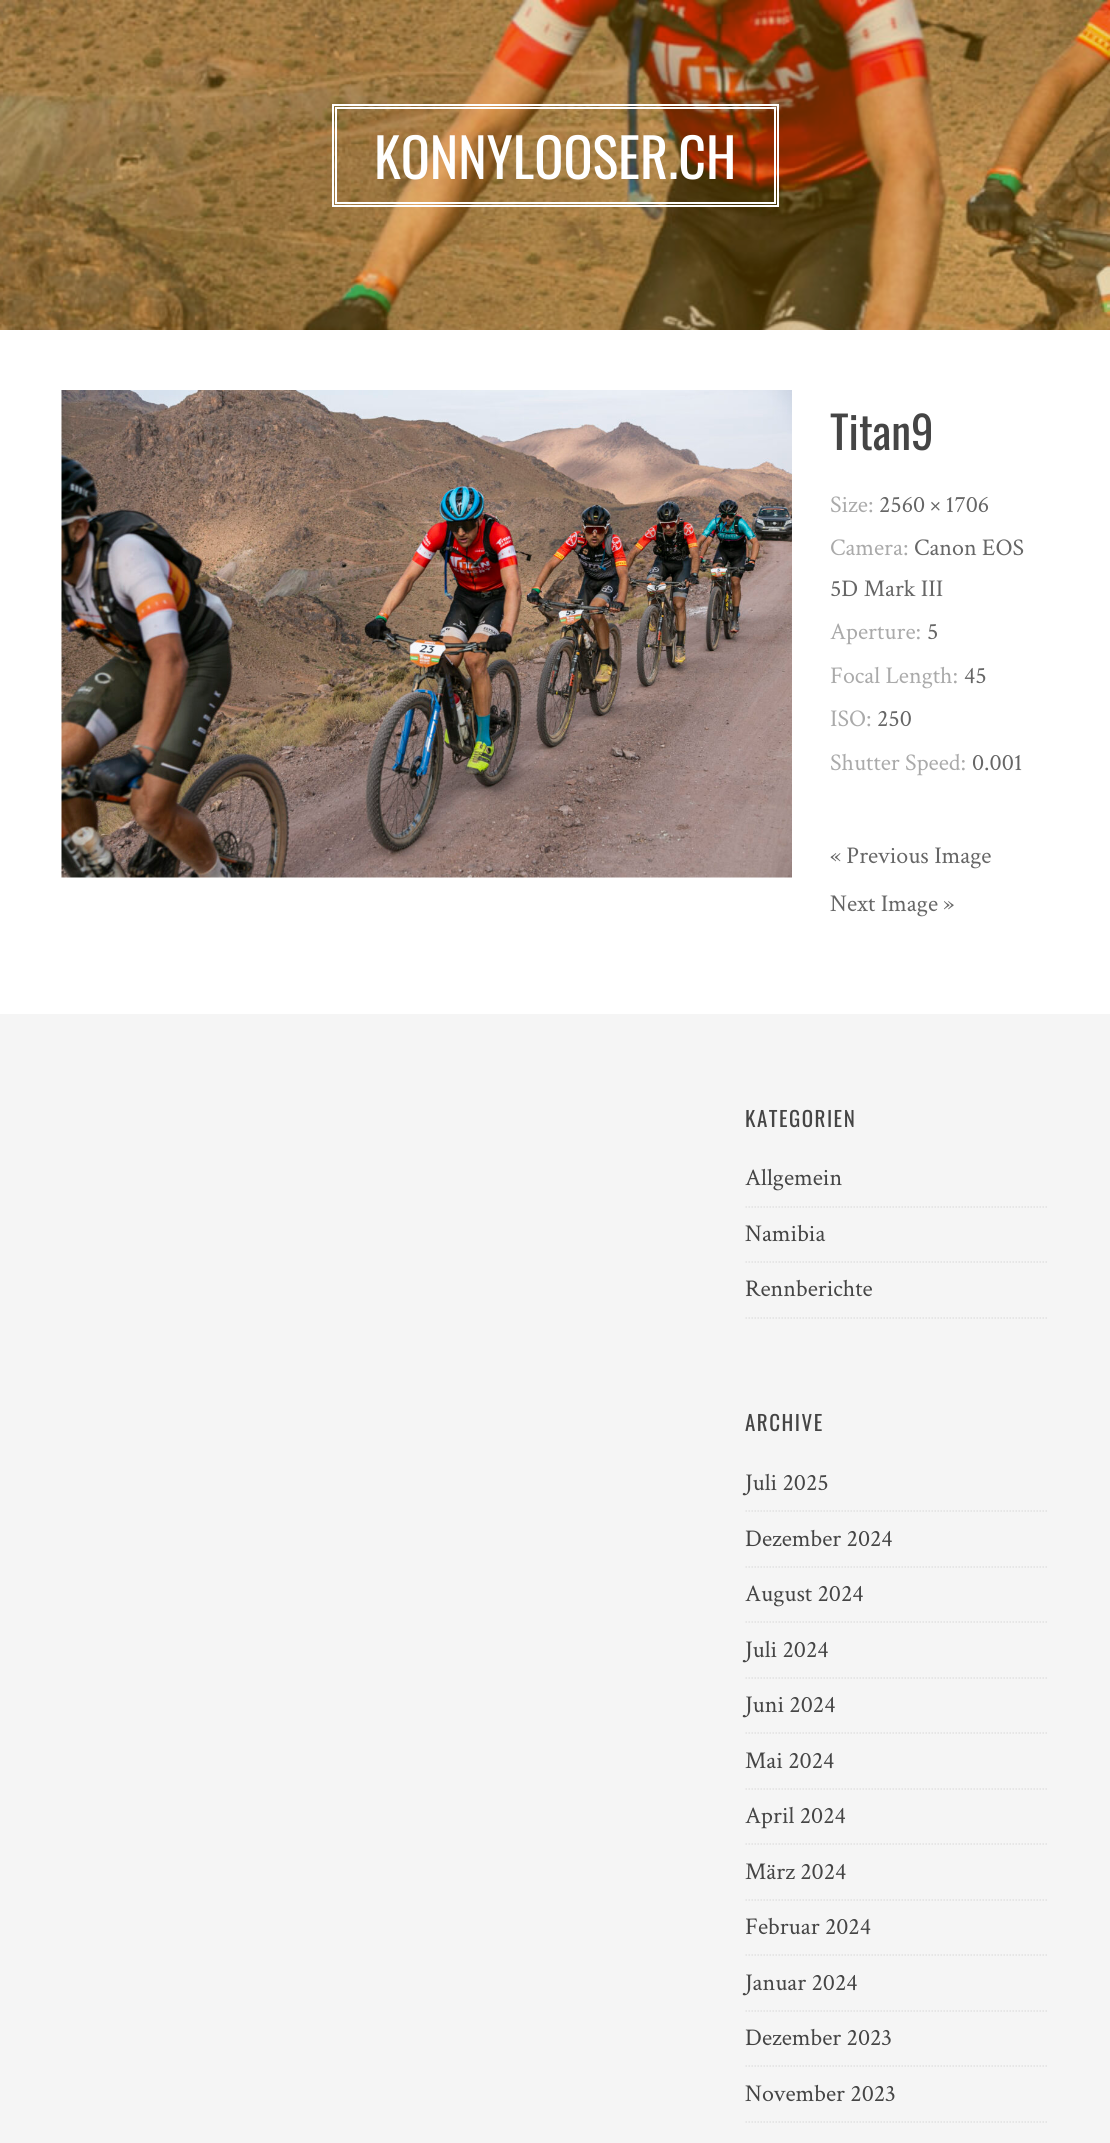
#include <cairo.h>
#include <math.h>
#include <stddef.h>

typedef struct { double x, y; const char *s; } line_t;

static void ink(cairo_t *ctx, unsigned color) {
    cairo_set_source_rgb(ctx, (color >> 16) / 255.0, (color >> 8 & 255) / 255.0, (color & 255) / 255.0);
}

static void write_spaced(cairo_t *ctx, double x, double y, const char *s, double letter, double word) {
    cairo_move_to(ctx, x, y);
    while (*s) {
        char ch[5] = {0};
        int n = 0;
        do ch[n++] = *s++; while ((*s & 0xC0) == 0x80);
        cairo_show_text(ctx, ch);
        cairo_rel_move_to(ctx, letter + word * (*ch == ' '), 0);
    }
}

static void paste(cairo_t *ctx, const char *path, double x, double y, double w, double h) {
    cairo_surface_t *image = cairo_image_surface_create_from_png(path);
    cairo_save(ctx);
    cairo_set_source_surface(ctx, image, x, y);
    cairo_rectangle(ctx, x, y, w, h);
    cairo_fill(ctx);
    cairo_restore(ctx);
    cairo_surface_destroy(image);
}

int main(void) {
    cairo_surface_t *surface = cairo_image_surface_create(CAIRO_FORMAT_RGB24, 1110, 2143);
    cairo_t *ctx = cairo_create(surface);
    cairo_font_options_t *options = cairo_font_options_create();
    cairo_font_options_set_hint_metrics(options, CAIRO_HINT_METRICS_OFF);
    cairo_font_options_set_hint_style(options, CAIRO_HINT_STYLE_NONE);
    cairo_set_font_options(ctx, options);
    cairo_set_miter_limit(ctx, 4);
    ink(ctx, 0xF5F5F5);
    cairo_paint(ctx);
    paste(ctx, "media/1.png", 0, 0, 1110, 330);
    cairo_rectangle(ctx, 333, 105, 445, 101);
    ink(ctx, 0xFFFFFF);
    cairo_stroke(ctx);
    cairo_rectangle(ctx, 336, 108, 439, 95);
    cairo_stroke(ctx);
    cairo_select_font_face(ctx, "Oswald", CAIRO_FONT_SLANT_NORMAL, CAIRO_FONT_WEIGHT_NORMAL);
    cairo_set_font_size(ctx, 54);
    cairo_move_to(ctx, 374, 179);
    cairo_show_text(ctx, "KONNYLOOSER.CH");
    cairo_rectangle(ctx, 0, 330, 1110, 684);
    cairo_fill(ctx);
    paste(ctx, "media/2.png", 61, 390, 731, 488);
    cairo_set_font_size(ctx, 45);
    ink(ctx, 0x454545);
    cairo_move_to(ctx, 830, 450);
    cairo_show_text(ctx, "Titan9");
    cairo_select_font_face(ctx, "Crimson Text", CAIRO_FONT_SLANT_NORMAL, CAIRO_FONT_WEIGHT_NORMAL);
    cairo_set_font_size(ctx, 24);
    ink(ctx, 0xAAAAAA);
    cairo_move_to(ctx, 830, 512);
    cairo_show_text(ctx, "Size:");
    ink(ctx, 0x666666);
    cairo_move_to(ctx, 879, 512);
    cairo_show_text(ctx, "2560 × 1706");
    ink(ctx, 0xAAAAAA);
    cairo_move_to(ctx, 830, 555);
    cairo_show_text(ctx, "Camera:");
    ink(ctx, 0x666666);
    cairo_move_to(ctx, 914, 555);
    cairo_show_text(ctx, "Canon EOS");
    cairo_move_to(ctx, 830, 596);
    cairo_show_text(ctx, "5D Mark III");
    ink(ctx, 0xAAAAAA);
    cairo_move_to(ctx, 830, 639);
    cairo_show_text(ctx, "Aperture:");
    ink(ctx, 0x666666);
    cairo_move_to(ctx, 927, 639);
    cairo_show_text(ctx, "5");
    ink(ctx, 0xAAAAAA);
    cairo_move_to(ctx, 830, 683);
    cairo_show_text(ctx, "Focal Length:");
    ink(ctx, 0x666666);
    cairo_move_to(ctx, 964, 683);
    cairo_show_text(ctx, "45");
    ink(ctx, 0xAAAAAA);
    cairo_move_to(ctx, 830, 726);
    cairo_show_text(ctx, "ISO:");
    ink(ctx, 0x666666);
    cairo_move_to(ctx, 877, 726);
    cairo_show_text(ctx, "250");
    ink(ctx, 0xAAAAAA);
    cairo_move_to(ctx, 830, 770);
    cairo_show_text(ctx, "Shutter Speed:");
    ink(ctx, 0x666666);
    {
        static const line_t items[] = {
            {972, 770, "0.001"},
            {830, 863, "« Previous Image"},
            {830, 911, "Next Image »"},
        };
        for (size_t i = 0; i < sizeof items / sizeof *items; i++) {
            cairo_move_to(ctx, items[i].x, items[i].y);
            cairo_show_text(ctx, items[i].s);
        }
    }
    cairo_select_font_face(ctx, "Oswald", CAIRO_FONT_SLANT_NORMAL, CAIRO_FONT_WEIGHT_NORMAL);
    cairo_set_font_size(ctx, 21);
    ink(ctx, 0x454545);
    write_spaced(ctx, 745, 1127, "KATEGORIEN", 1.5, 0);
    cairo_new_path(ctx);
    cairo_move_to(ctx, 745.5, 1207);
    cairo_line_to(ctx, 1048.5, 1207);
    ink(ctx, 0xE0E0E0);
    cairo_set_line_width(ctx, 1.5);
    cairo_set_dash(ctx, (double[]){1.5, 1.5}, 2, 0);
    cairo_stroke(ctx);
    cairo_select_font_face(ctx, "Crimson Text", CAIRO_FONT_SLANT_NORMAL, CAIRO_FONT_WEIGHT_NORMAL);
    cairo_set_font_size(ctx, 24);
    ink(ctx, 0x454545);
    cairo_move_to(ctx, 745, 1185);
    cairo_show_text(ctx, "Allgemein");
    cairo_new_path(ctx);
    cairo_move_to(ctx, 745.5, 1262);
    cairo_line_to(ctx, 1048.5, 1262);
    ink(ctx, 0xE0E0E0);
    cairo_stroke(ctx);
    ink(ctx, 0x454545);
    cairo_move_to(ctx, 745, 1241);
    cairo_show_text(ctx, "Namibia");
    cairo_new_path(ctx);
    cairo_move_to(ctx, 745.5, 1318);
    cairo_line_to(ctx, 1048.5, 1318);
    ink(ctx, 0xE0E0E0);
    cairo_stroke(ctx);
    ink(ctx, 0x454545);
    cairo_move_to(ctx, 745, 1296);
    cairo_show_text(ctx, "Rennberichte");
    cairo_select_font_face(ctx, "Oswald", CAIRO_FONT_SLANT_NORMAL, CAIRO_FONT_WEIGHT_NORMAL);
    cairo_set_font_size(ctx, 21);
    write_spaced(ctx, 745, 1431, "ARCHIVE", 1.5, 0);
    cairo_new_path(ctx);
    cairo_move_to(ctx, 745.5, 1511);
    cairo_line_to(ctx, 1048.5, 1511);
    ink(ctx, 0xE0E0E0);
    cairo_stroke(ctx);
    cairo_select_font_face(ctx, "Crimson Text", CAIRO_FONT_SLANT_NORMAL, CAIRO_FONT_WEIGHT_NORMAL);
    cairo_set_font_size(ctx, 24);
    ink(ctx, 0x454545);
    cairo_move_to(ctx, 745, 1490);
    cairo_show_text(ctx, "Juli 2025");
    cairo_new_path(ctx);
    cairo_move_to(ctx, 745.5, 1567);
    cairo_line_to(ctx, 1048.5, 1567);
    ink(ctx, 0xE0E0E0);
    cairo_stroke(ctx);
    ink(ctx, 0x454545);
    cairo_move_to(ctx, 745, 1546);
    cairo_show_text(ctx, "Dezember 2024");
    cairo_new_path(ctx);
    cairo_move_to(ctx, 745.5, 1622);
    cairo_line_to(ctx, 1048.5, 1622);
    ink(ctx, 0xE0E0E0);
    cairo_stroke(ctx);
    ink(ctx, 0x454545);
    cairo_move_to(ctx, 745, 1601);
    cairo_show_text(ctx, "August 2024");
    cairo_new_path(ctx);
    cairo_move_to(ctx, 745.5, 1678);
    cairo_line_to(ctx, 1048.5, 1678);
    ink(ctx, 0xE0E0E0);
    cairo_stroke(ctx);
    ink(ctx, 0x454545);
    cairo_move_to(ctx, 745, 1657);
    cairo_show_text(ctx, "Juli 2024");
    cairo_new_path(ctx);
    cairo_move_to(ctx, 745.5, 1733);
    cairo_line_to(ctx, 1048.5, 1733);
    ink(ctx, 0xE0E0E0);
    cairo_stroke(ctx);
    ink(ctx, 0x454545);
    cairo_move_to(ctx, 745, 1712);
    cairo_show_text(ctx, "Juni 2024");
    cairo_new_path(ctx);
    cairo_move_to(ctx, 745.5, 1789);
    cairo_line_to(ctx, 1048.5, 1789);
    ink(ctx, 0xE0E0E0);
    cairo_stroke(ctx);
    ink(ctx, 0x454545);
    cairo_move_to(ctx, 745, 1768);
    cairo_show_text(ctx, "Mai 2024");
    cairo_new_path(ctx);
    cairo_move_to(ctx, 745.5, 1844);
    cairo_line_to(ctx, 1048.5, 1844);
    ink(ctx, 0xE0E0E0);
    cairo_stroke(ctx);
    ink(ctx, 0x454545);
    cairo_move_to(ctx, 745, 1823);
    cairo_show_text(ctx, "April 2024");
    cairo_new_path(ctx);
    cairo_move_to(ctx, 745.5, 1900);
    cairo_line_to(ctx, 1048.5, 1900);
    ink(ctx, 0xE0E0E0);
    cairo_stroke(ctx);
    ink(ctx, 0x454545);
    cairo_move_to(ctx, 745, 1879);
    cairo_show_text(ctx, "März 2024");
    cairo_new_path(ctx);
    cairo_move_to(ctx, 745.5, 1955);
    cairo_line_to(ctx, 1048.5, 1955);
    ink(ctx, 0xE0E0E0);
    cairo_stroke(ctx);
    ink(ctx, 0x454545);
    cairo_move_to(ctx, 745, 1934);
    cairo_show_text(ctx, "Februar 2024");
    cairo_new_path(ctx);
    cairo_move_to(ctx, 745.5, 2011);
    cairo_line_to(ctx, 1048.5, 2011);
    ink(ctx, 0xE0E0E0);
    cairo_stroke(ctx);
    ink(ctx, 0x454545);
    cairo_move_to(ctx, 745, 1990);
    cairo_show_text(ctx, "Januar 2024");
    cairo_new_path(ctx);
    cairo_move_to(ctx, 745.5, 2066);
    cairo_line_to(ctx, 1048.5, 2066);
    ink(ctx, 0xE0E0E0);
    cairo_stroke(ctx);
    ink(ctx, 0x454545);
    cairo_move_to(ctx, 745, 2045);
    cairo_show_text(ctx, "Dezember 2023");
    cairo_new_path(ctx);
    cairo_move_to(ctx, 745.5, 2122);
    cairo_line_to(ctx, 1048.5, 2122);
    ink(ctx, 0xE0E0E0);
    cairo_stroke(ctx);
    ink(ctx, 0x454545);
    cairo_move_to(ctx, 745, 2101);
    cairo_show_text(ctx, "November 2023");
    cairo_surface_write_to_png(surface, "image.png");
    cairo_font_options_destroy(options);
    cairo_destroy(ctx);
    cairo_surface_destroy(surface);
    return 0;
}
